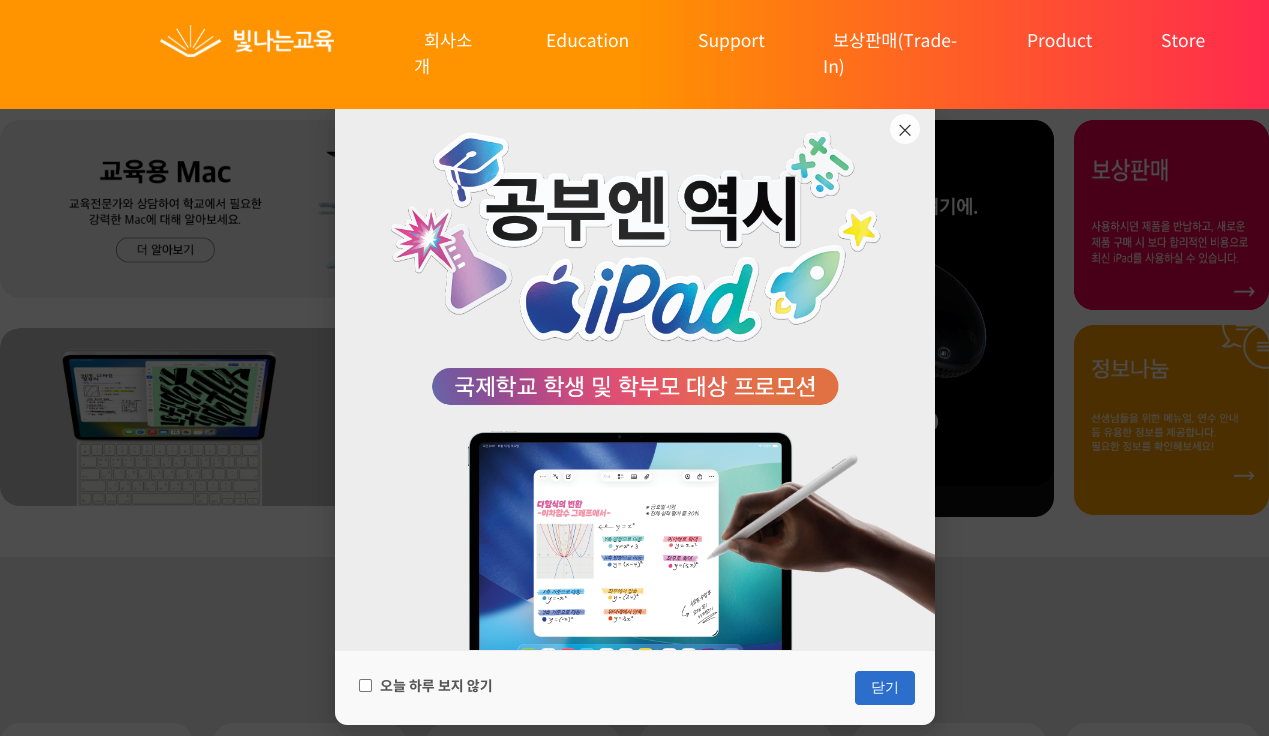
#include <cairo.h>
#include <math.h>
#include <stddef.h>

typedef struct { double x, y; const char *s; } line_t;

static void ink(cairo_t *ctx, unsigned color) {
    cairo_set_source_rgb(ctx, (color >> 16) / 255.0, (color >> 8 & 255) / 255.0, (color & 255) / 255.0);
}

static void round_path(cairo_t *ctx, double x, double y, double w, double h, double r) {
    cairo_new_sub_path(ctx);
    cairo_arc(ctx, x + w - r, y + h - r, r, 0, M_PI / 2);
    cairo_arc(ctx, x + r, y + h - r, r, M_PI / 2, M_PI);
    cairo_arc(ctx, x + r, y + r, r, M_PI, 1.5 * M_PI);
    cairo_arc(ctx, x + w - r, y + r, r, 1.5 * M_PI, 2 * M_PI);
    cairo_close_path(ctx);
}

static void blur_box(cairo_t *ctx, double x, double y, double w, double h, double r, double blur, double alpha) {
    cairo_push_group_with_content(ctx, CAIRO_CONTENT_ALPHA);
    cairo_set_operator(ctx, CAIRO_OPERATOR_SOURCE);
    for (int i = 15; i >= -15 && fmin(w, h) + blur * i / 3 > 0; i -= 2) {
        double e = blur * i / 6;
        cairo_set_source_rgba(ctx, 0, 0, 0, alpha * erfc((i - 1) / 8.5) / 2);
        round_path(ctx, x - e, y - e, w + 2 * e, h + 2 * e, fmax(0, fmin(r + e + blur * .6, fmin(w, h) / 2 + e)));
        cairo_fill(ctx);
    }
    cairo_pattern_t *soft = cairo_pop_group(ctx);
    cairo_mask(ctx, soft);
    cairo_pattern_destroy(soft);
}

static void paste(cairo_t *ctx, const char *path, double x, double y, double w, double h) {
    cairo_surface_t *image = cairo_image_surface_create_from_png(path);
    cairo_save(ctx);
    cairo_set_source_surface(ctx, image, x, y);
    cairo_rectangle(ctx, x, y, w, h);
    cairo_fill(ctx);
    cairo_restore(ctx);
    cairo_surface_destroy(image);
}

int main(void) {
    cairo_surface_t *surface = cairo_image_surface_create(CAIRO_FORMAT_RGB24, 1269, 736);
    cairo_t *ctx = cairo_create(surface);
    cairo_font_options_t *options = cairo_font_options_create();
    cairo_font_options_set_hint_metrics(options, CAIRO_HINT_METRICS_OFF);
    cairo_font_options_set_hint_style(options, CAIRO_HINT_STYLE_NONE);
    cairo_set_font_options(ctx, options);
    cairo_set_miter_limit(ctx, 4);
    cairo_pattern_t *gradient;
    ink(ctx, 0x4D4D4D);
    cairo_paint(ctx);
    paste(ctx, "media/2.png", 0, 120, 335, 178);
    paste(ctx, "media/3.png", 0, 328, 335, 178);
    ink(ctx, 0x040404);
    round_path(ctx, 645, 120, 409, 397, 20);
    cairo_fill(ctx);
    paste(ctx, "media/4.png", 935, 120, 119, 366);
    ink(ctx, 0x484748);
    cairo_rectangle(ctx, 0, 557, 1269, 179);
    cairo_fill(ctx);
    ink(ctx, 0x4D4D4D);
    round_path(ctx, 213, 723, 193, 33, 20);
    cairo_fill(ctx);
    round_path(ctx, 426, 723, 193, 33, 20);
    cairo_fill(ctx);
    round_path(ctx, 639, 723, 194, 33, 20);
    cairo_fill(ctx);
    round_path(ctx, 853, 723, 193, 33, 20);
    cairo_fill(ctx);
    ink(ctx, 0x000000);
    blur_box(ctx, 335, 109, 600, 626, 12, 15, 0.2);
    gradient = cairo_pattern_create_linear(0, 55, 1269, 54);
    cairo_pattern_add_color_stop_rgba(gradient, 0.5, 1, 0.576, 0, 1);
    cairo_pattern_add_color_stop_rgba(gradient, 1, 1, 0.165, 0.302, 1);
    cairo_set_source(ctx, gradient);
    cairo_pattern_destroy(gradient);
    cairo_rectangle(ctx, 0, 0, 1269, 109);
    cairo_fill(ctx);
    paste(ctx, "media/1.png", 160, 25, 174, 32);
    cairo_select_font_face(ctx, "Noto Sans CJK KR", CAIRO_FONT_SLANT_NORMAL, CAIRO_FONT_WEIGHT_NORMAL);
    cairo_set_font_size(ctx, 17.5);
    ink(ctx, 0xFFFFFF);
    {
        static const line_t items[] = {
            {424, 47, "회사소"},
            {414, 73, "개"},
            {546, 47, "Education"},
            {698, 47, "Support"},
            {833, 47, "보상판매(Trade-"},
            {823, 73, "In)"},
            {1027, 47, "Product"},
            {1161, 47, "Store"},
        };
        for (size_t i = 0; i < sizeof items / sizeof *items; i++) {
            cairo_move_to(ctx, items[i].x, items[i].y);
            cairo_show_text(ctx, items[i].s);
        }
    }
    ink(ctx, 0x470017);
    round_path(ctx, 1074, 120, 195, 190, 20);
    cairo_fill(ctx);
    paste(ctx, "media/5.png", 1074, 120, 195, 190);
    ink(ctx, 0x4D3000);
    round_path(ctx, 1074, 325, 195, 190, 20);
    cairo_fill(ctx);
    paste(ctx, "media/6.png", 1074, 325, 195, 156);
    paste(ctx, "media/7.png", 335, 109, 600, 541);
    ink(ctx, 0xFDFDFD);
    cairo_arc(ctx, 905, 129, 15, 0, 2 * M_PI);
    cairo_fill(ctx);
    cairo_set_font_size(ctx, 18);
    ink(ctx, 0x333333);
    cairo_move_to(ctx, 896, 137);
    cairo_show_text(ctx, "×");
    ink(ctx, 0xF9F9F9);
    cairo_new_path(ctx);
    cairo_move_to(ctx, 335, 650);
    cairo_line_to(ctx, 935, 650);
    cairo_line_to(ctx, 935, 713);
    cairo_curve_to(ctx, 935, 719.5, 929.5, 725, 923, 725);
    cairo_line_to(ctx, 347, 725);
    cairo_curve_to(ctx, 340.5, 725, 335, 719.5, 335, 713);
    cairo_close_path(ctx);
    cairo_fill(ctx);
    ink(ctx, 0xEEEEEE);
    cairo_rectangle(ctx, 335, 650, 600, 1);
    cairo_fill(ctx);
    ink(ctx, 0xFFFFFF);
    round_path(ctx, 359.5, 679.5, 12, 12, 1.5);
    cairo_fill_preserve(ctx);
    ink(ctx, 0x767676);
    cairo_set_line_width(ctx, 1);
    cairo_stroke(ctx);
    cairo_select_font_face(ctx, "Noto Sans CJK KR", CAIRO_FONT_SLANT_NORMAL, CAIRO_FONT_WEIGHT_BOLD);
    cairo_set_font_size(ctx, 14);
    ink(ctx, 0x555555);
    cairo_move_to(ctx, 380, 691);
    cairo_show_text(ctx, "오늘 하루 보지 않기");
    ink(ctx, 0x2C6ECB);
    round_path(ctx, 855, 671, 60, 34, 4);
    cairo_fill(ctx);
    cairo_select_font_face(ctx, "WenQuanYi Zen Hei Medium", CAIRO_FONT_SLANT_NORMAL, CAIRO_FONT_WEIGHT_NORMAL);
    ink(ctx, 0xFFFFFF);
    cairo_move_to(ctx, 871, 692);
    cairo_show_text(ctx, "닫기");
    ink(ctx, 0x4D4D4D);
    round_path(ctx, 0, 723, 193, 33, 20);
    cairo_fill(ctx);
    round_path(ctx, 1066, 723, 193, 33, 20);
    cairo_fill(ctx);
    cairo_surface_write_to_png(surface, "image.png");
    cairo_font_options_destroy(options);
    cairo_destroy(ctx);
    cairo_surface_destroy(surface);
    return 0;
}
